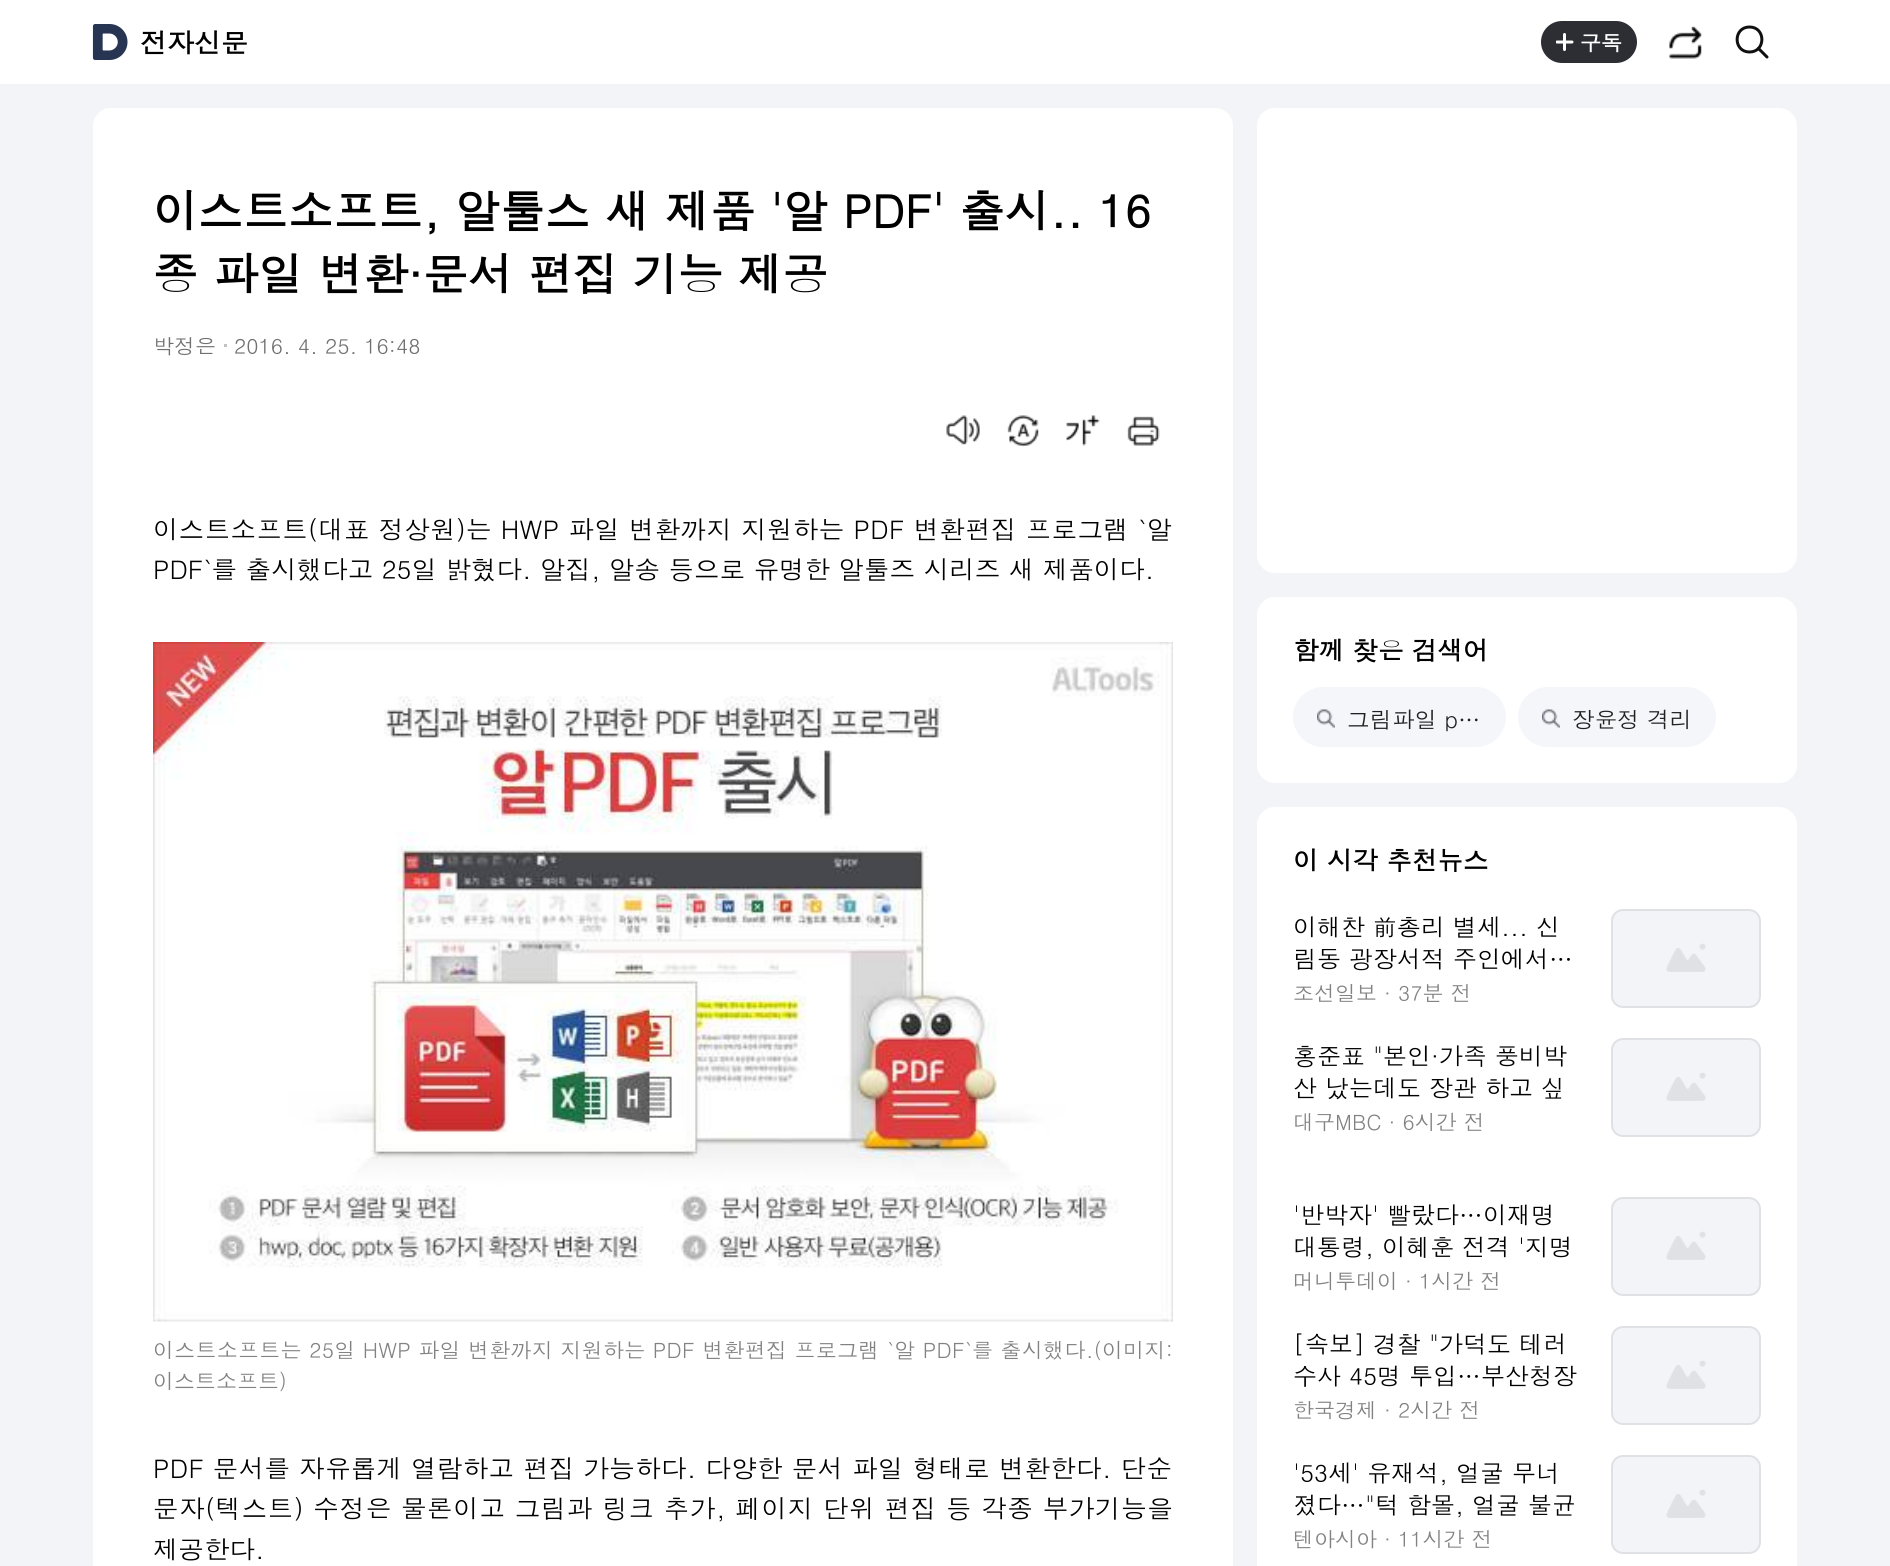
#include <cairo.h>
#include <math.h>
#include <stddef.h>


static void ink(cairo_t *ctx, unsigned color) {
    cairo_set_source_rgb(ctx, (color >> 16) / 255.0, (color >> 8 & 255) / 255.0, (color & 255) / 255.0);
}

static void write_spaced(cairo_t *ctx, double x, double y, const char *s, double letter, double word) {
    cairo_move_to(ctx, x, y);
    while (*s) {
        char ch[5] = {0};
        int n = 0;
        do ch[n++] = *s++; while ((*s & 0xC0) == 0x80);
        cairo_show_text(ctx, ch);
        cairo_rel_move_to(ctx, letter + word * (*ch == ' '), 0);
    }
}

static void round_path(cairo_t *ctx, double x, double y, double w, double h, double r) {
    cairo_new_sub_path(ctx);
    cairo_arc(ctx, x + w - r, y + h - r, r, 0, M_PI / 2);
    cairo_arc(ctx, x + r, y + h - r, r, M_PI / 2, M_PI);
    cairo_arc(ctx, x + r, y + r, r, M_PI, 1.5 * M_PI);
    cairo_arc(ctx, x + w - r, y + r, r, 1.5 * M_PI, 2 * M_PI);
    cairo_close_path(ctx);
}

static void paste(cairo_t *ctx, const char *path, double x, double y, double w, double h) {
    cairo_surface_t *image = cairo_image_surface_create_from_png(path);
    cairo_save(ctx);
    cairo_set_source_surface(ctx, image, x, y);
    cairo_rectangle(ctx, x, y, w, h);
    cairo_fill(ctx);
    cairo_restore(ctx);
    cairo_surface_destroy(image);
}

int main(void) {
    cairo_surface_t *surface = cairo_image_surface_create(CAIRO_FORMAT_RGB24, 1890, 1566);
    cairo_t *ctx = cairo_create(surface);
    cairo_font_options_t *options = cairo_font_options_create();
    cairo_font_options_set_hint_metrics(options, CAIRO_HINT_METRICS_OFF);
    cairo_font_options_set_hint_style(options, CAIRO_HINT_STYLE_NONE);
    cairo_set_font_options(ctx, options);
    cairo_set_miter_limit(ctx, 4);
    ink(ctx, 0xF2F4F7);
    cairo_paint(ctx);
    ink(ctx, 0xFFFFFF);
    cairo_rectangle(ctx, 0, 0, 1890, 84);
    cairo_fill(ctx);
    paste(ctx, "media/1.png", 92, 24, 36, 36);
    cairo_select_font_face(ctx, "Dotum", CAIRO_FONT_SLANT_NORMAL, CAIRO_FONT_WEIGHT_BOLD);
    cairo_set_font_size(ctx, 27);
    ink(ctx, 0x000000);
    cairo_move_to(ctx, 140, 53);
    cairo_show_text(ctx, "전자신문");
    ink(ctx, 0x2C2E33);
    round_path(ctx, 1541, 21, 96, 42, 21);
    cairo_fill(ctx);
    paste(ctx, "media/2.png", 1556, 33, 18, 18);
    cairo_set_font_size(ctx, 21);
    ink(ctx, 0xFFFFFF);
    cairo_move_to(ctx, 1580, 51);
    cairo_show_text(ctx, "구독");
    paste(ctx, "media/3.png", 1669, 26, 33, 33);
    cairo_new_path(ctx);
    cairo_move_to(ctx, 1749.5, 52);
    cairo_curve_to(ctx, 1766, 52, 1766, 27, 1749.5, 27);
    cairo_curve_to(ctx, 1733, 27, 1733, 52, 1749.5, 52);
    cairo_close_path(ctx);
    ink(ctx, 0x101010);
    cairo_set_line_width(ctx, 3);
    cairo_stroke(ctx);
    cairo_new_path(ctx);
    cairo_move_to(ctx, 1758.5, 48.5);
    cairo_line_to(ctx, 1767, 57);
    cairo_set_line_cap(ctx, CAIRO_LINE_CAP_ROUND);
    cairo_set_line_join(ctx, CAIRO_LINE_JOIN_ROUND);
    cairo_stroke(ctx);
    ink(ctx, 0xFFFFFF);
    round_path(ctx, 93, 108, 1140, 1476, 18);
    cairo_fill(ctx);
    cairo_set_font_size(ctx, 45);
    ink(ctx, 0x000000);
    cairo_move_to(ctx, 153, 228);
    cairo_show_text(ctx, "이스트소프트, 알툴스 새 제품 '알 PDF' 출시.. 16");
    cairo_move_to(ctx, 153, 291);
    cairo_show_text(ctx, "종 파일 변환·문서 편집 기능 제공");
    cairo_select_font_face(ctx, "Dotum", CAIRO_FONT_SLANT_NORMAL, CAIRO_FONT_WEIGHT_NORMAL);
    cairo_set_font_size(ctx, 21);
    ink(ctx, 0x707070);
    cairo_move_to(ctx, 153, 354);
    cairo_show_text(ctx, "박정은");
    ink(ctx, 0xC2C2C2);
    cairo_rectangle(ctx, 224, 344, 3, 3);
    cairo_fill(ctx);
    ink(ctx, 0x707070);
    cairo_move_to(ctx, 234, 354);
    cairo_show_text(ctx, "2016. 4. 25. 16:48");
    paste(ctx, "media/4.png", 946, 415, 34, 30);
    paste(ctx, "media/5.png", 1007, 415, 32, 32);
    paste(ctx, "media/6.png", 1066, 415, 34, 31);
    paste(ctx, "media/7.png", 1127, 416, 33, 30);
    cairo_set_font_size(ctx, 25.5);
    ink(ctx, 0x000000);
    write_spaced(ctx, 153, 539, "이스트소프트(대표 정상원)는 HWP 파일 변환까지 지원하는 PDF 변환편집 프로그램 `알", 0.35, 0);
    cairo_move_to(ctx, 153, 579);
    cairo_show_text(ctx, "PDF`를 출시했다고 25일 밝혔다. 알집, 알송 등으로 유명한 알툴즈 시리즈 새 제품이다.");
    paste(ctx, "media/8.png", 153, 642, 1020, 680);
    cairo_set_font_size(ctx, 21);
    ink(ctx, 0x828282);
    write_spaced(ctx, 153, 1358, "이스트소프트는 25일 HWP 파일 변환까지 지원하는 PDF 변환편집 프로그램 `알 PDF`를 출시했다.(이미지:", 0.27, 0);
    cairo_move_to(ctx, 153, 1389);
    cairo_show_text(ctx, "이스트소프트)");
    cairo_set_font_size(ctx, 25.5);
    ink(ctx, 0x000000);
    write_spaced(ctx, 153, 1478, "PDF 문서를 자유롭게 열람하고 편집 가능하다. 다양한 문서 파일 형태로 변환한다. 단순", 0.3, 0);
    write_spaced(ctx, 153, 1518, "문자(텍스트) 수정은 물론이고 그림과 링크 추가, 페이지 단위 편집 등 각종 부가기능을", 0.65, 0);
    cairo_move_to(ctx, 153, 1559);
    cairo_show_text(ctx, "제공한다.");
    ink(ctx, 0xFFFFFF);
    round_path(ctx, 1257, 108, 540, 465, 18);
    cairo_fill(ctx);
    round_path(ctx, 1257, 597, 540, 186, 18);
    cairo_fill(ctx);
    cairo_select_font_face(ctx, "Dotum", CAIRO_FONT_SLANT_NORMAL, CAIRO_FONT_WEIGHT_BOLD);
    ink(ctx, 0x000000);
    cairo_move_to(ctx, 1293, 660);
    cairo_show_text(ctx, "함께 찾은 검색어");
    ink(ctx, 0xF4F6FA);
    round_path(ctx, 1294, 688, 211, 58, 29);
    cairo_fill_preserve(ctx);
    cairo_set_line_width(ctx, 2);
    cairo_set_line_cap(ctx, CAIRO_LINE_CAP_BUTT);
    cairo_set_line_join(ctx, CAIRO_LINE_JOIN_MITER);
    cairo_stroke(ctx);
    paste(ctx, "media/9.png", 1317, 709, 18, 19);
    cairo_select_font_face(ctx, "Dotum", CAIRO_FONT_SLANT_NORMAL, CAIRO_FONT_WEIGHT_NORMAL);
    cairo_set_font_size(ctx, 22.5);
    ink(ctx, 0x202020);
    cairo_move_to(ctx, 1347, 728);
    cairo_show_text(ctx, "그림파일 p…");
    ink(ctx, 0xF4F6FA);
    round_path(ctx, 1519, 688, 196, 58, 29);
    cairo_fill_preserve(ctx);
    cairo_stroke(ctx);
    paste(ctx, "media/9.png", 1542, 709, 18, 19);
    ink(ctx, 0x202020);
    cairo_move_to(ctx, 1572, 728);
    cairo_show_text(ctx, "장윤정 격리");
    ink(ctx, 0xFFFFFF);
    round_path(ctx, 1257, 807, 540, 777, 18);
    cairo_fill(ctx);
    cairo_select_font_face(ctx, "Dotum", CAIRO_FONT_SLANT_NORMAL, CAIRO_FONT_WEIGHT_BOLD);
    cairo_set_font_size(ctx, 25.5);
    ink(ctx, 0x000000);
    cairo_move_to(ctx, 1293, 870);
    cairo_show_text(ctx, "이 시각 추천뉴스");
    cairo_select_font_face(ctx, "Dotum", CAIRO_FONT_SLANT_NORMAL, CAIRO_FONT_WEIGHT_NORMAL);
    cairo_set_font_size(ctx, 24);
    cairo_move_to(ctx, 1293, 936);
    cairo_show_text(ctx, "이해찬 前총리 별세... 신");
    cairo_move_to(ctx, 1293, 968);
    cairo_show_text(ctx, "림동 광장서적 주인에서…");
    cairo_set_font_size(ctx, 21);
    ink(ctx, 0x828282);
    cairo_move_to(ctx, 1293, 1001);
    cairo_show_text(ctx, "조선일보 · 37분 전");
    ink(ctx, 0xF2F4F7);
    round_path(ctx, 1611, 909, 150, 99, 12);
    cairo_fill(ctx);
    paste(ctx, "media/10.png", 1666, 943, 40, 29);
    round_path(ctx, 1612, 910, 148, 97, 11);
    cairo_set_source_rgba(ctx, 0, 0, 0, 0.08);
    cairo_stroke(ctx);
    cairo_set_font_size(ctx, 24);
    ink(ctx, 0x000000);
    cairo_move_to(ctx, 1293, 1065);
    cairo_show_text(ctx, "홍준표 \"본인·가족 풍비박");
    cairo_move_to(ctx, 1293, 1097);
    cairo_show_text(ctx, "산 났는데도 장관 하고 싶");
    cairo_set_font_size(ctx, 21);
    ink(ctx, 0x828282);
    cairo_move_to(ctx, 1293, 1130);
    cairo_show_text(ctx, "대구MBC · 6시간 전");
    ink(ctx, 0xF2F4F7);
    round_path(ctx, 1611, 1038, 150, 99, 12);
    cairo_fill(ctx);
    paste(ctx, "media/10.png", 1666, 1072, 40, 29);
    round_path(ctx, 1612, 1039, 148, 97, 11);
    cairo_set_source_rgba(ctx, 0, 0, 0, 0.08);
    cairo_stroke(ctx);
    cairo_set_font_size(ctx, 24);
    ink(ctx, 0x000000);
    cairo_move_to(ctx, 1293, 1224);
    cairo_show_text(ctx, "'반박자' 빨랐다…이재명");
    cairo_move_to(ctx, 1293, 1256);
    cairo_show_text(ctx, "대통령, 이혜훈 전격 '지명");
    cairo_set_font_size(ctx, 21);
    ink(ctx, 0x828282);
    cairo_move_to(ctx, 1293, 1289);
    cairo_show_text(ctx, "머니투데이 · 1시간 전");
    ink(ctx, 0xF2F4F7);
    round_path(ctx, 1611, 1197, 150, 99, 12);
    cairo_fill(ctx);
    paste(ctx, "media/10.png", 1666, 1231, 40, 29);
    round_path(ctx, 1612, 1198, 148, 97, 11);
    cairo_set_source_rgba(ctx, 0, 0, 0, 0.08);
    cairo_stroke(ctx);
    cairo_set_font_size(ctx, 24);
    ink(ctx, 0x000000);
    cairo_move_to(ctx, 1293, 1353);
    cairo_show_text(ctx, "[속보] 경찰 \"가덕도 테러");
    cairo_move_to(ctx, 1293, 1385);
    cairo_show_text(ctx, "수사 45명 투입…부산청장");
    cairo_set_font_size(ctx, 21);
    ink(ctx, 0x828282);
    cairo_move_to(ctx, 1293, 1418);
    cairo_show_text(ctx, "한국경제 · 2시간 전");
    ink(ctx, 0xF2F4F7);
    round_path(ctx, 1611, 1326, 150, 99, 12);
    cairo_fill(ctx);
    paste(ctx, "media/10.png", 1666, 1360, 40, 29);
    round_path(ctx, 1612, 1327, 148, 97, 11);
    cairo_set_source_rgba(ctx, 0, 0, 0, 0.08);
    cairo_stroke(ctx);
    cairo_set_font_size(ctx, 24);
    ink(ctx, 0x000000);
    cairo_move_to(ctx, 1293, 1482);
    cairo_show_text(ctx, "'53세' 유재석, 얼굴 무너");
    cairo_move_to(ctx, 1293, 1514);
    cairo_show_text(ctx, "졌다…\"턱 함몰, 얼굴 불균");
    cairo_set_font_size(ctx, 21);
    ink(ctx, 0x828282);
    cairo_move_to(ctx, 1293, 1547);
    cairo_show_text(ctx, "텐아시아 · 11시간 전");
    ink(ctx, 0xF2F4F7);
    round_path(ctx, 1611, 1455, 150, 99, 12);
    cairo_fill(ctx);
    paste(ctx, "media/10.png", 1666, 1489, 40, 29);
    round_path(ctx, 1612, 1456, 148, 97, 11);
    cairo_set_source_rgba(ctx, 0, 0, 0, 0.08);
    cairo_stroke(ctx);
    cairo_surface_write_to_png(surface, "image.png");
    cairo_font_options_destroy(options);
    cairo_destroy(ctx);
    cairo_surface_destroy(surface);
    return 0;
}
